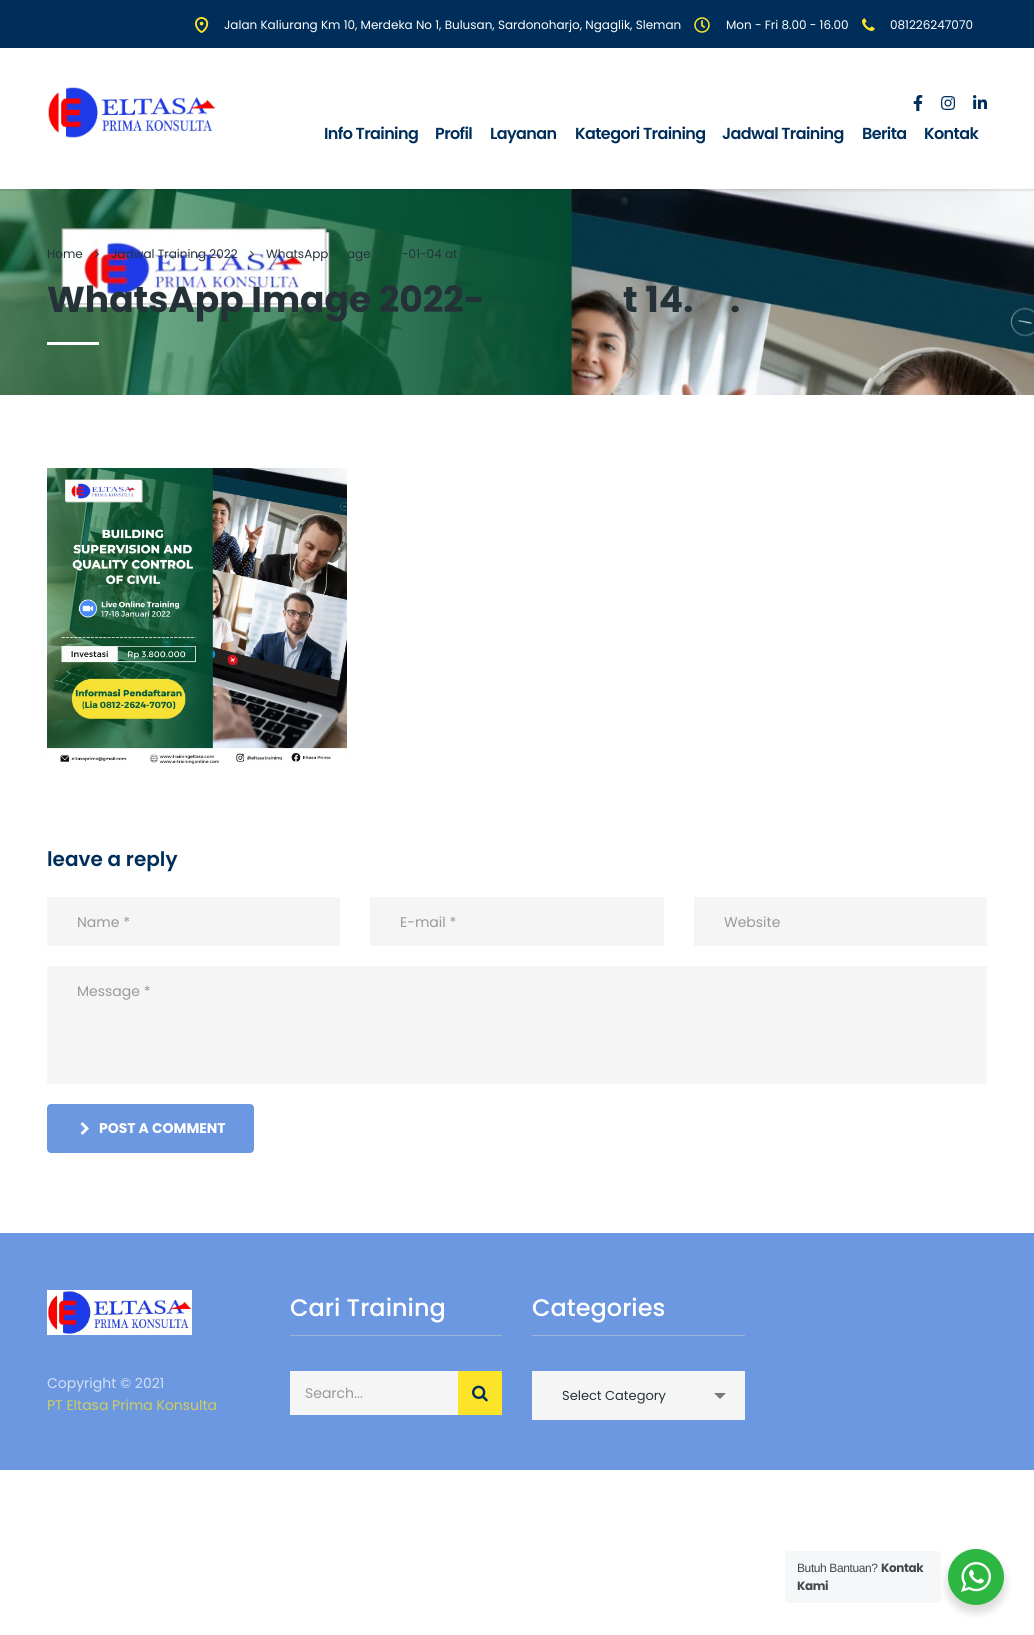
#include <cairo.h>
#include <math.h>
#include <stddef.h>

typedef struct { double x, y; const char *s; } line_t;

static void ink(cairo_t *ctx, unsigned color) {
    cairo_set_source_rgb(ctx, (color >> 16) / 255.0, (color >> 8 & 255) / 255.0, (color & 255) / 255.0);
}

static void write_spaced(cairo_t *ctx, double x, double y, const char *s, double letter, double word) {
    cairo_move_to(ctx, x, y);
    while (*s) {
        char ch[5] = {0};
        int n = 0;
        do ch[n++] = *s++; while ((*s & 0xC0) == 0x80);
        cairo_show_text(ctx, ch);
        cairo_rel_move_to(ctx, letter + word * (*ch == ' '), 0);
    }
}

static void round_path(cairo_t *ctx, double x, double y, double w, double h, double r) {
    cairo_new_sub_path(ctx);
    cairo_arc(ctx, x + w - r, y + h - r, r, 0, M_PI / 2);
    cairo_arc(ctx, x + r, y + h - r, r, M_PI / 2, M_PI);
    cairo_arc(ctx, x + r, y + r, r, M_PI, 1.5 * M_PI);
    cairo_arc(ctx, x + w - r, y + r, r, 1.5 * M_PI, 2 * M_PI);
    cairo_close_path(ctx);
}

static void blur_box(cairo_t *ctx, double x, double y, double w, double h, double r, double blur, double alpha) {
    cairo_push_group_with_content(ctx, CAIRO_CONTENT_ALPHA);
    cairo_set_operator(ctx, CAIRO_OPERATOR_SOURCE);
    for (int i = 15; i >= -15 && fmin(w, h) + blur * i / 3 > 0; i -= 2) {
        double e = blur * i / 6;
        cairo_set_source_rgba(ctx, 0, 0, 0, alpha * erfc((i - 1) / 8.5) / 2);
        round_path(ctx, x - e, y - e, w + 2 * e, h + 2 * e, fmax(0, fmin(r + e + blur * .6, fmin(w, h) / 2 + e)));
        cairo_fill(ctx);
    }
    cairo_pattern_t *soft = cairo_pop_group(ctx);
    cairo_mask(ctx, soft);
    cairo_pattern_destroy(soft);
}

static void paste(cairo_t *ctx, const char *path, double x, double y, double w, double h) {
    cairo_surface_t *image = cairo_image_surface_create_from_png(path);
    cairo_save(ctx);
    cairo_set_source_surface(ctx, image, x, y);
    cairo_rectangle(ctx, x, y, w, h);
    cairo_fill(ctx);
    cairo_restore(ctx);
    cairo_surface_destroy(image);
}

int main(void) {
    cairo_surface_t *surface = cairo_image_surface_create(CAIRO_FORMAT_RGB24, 1034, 1635);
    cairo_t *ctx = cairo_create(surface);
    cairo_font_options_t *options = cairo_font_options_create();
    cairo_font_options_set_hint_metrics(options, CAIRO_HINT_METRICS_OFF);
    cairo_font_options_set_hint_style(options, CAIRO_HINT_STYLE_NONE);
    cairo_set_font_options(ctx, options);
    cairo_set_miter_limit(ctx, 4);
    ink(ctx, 0xFFFFFF);
    cairo_paint(ctx);
    paste(ctx, "media/8.png", 0, 189, 1034, 206);
    cairo_save(ctx);
    cairo_rectangle(ctx, 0, 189, 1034, 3);
    cairo_clip(ctx);
    ink(ctx, 0x000000);
    blur_box(ctx, 0, 49, 1034, 141, 0, 1.5, 0.15);
    cairo_restore(ctx);
    ink(ctx, 0x002E5B);
    cairo_rectangle(ctx, 0, 0, 1034, 48);
    cairo_fill(ctx);
    paste(ctx, "media/1.png", 195, 17, 14, 16);
    cairo_select_font_face(ctx, "Poppins", CAIRO_FONT_SLANT_NORMAL, CAIRO_FONT_WEIGHT_NORMAL);
    cairo_set_font_size(ctx, 12);
    ink(ctx, 0xFFFFFF);
    cairo_move_to(ctx, 224, 29);
    cairo_show_text(ctx, "Jalan Kaliurang Km 10, Merdeka No 1, Bulusan, Sardonoharjo, Ngaglik, Sleman");
    paste(ctx, "media/2.png", 694, 17, 16, 16);
    cairo_move_to(ctx, 726, 29);
    cairo_show_text(ctx, "Mon - Fri 8.00 - 16.00");
    paste(ctx, "media/3.png", 862, 18, 13, 13);
    cairo_move_to(ctx, 890, 29);
    cairo_show_text(ctx, "081226247070");
    paste(ctx, "media/4.png", 48, 87, 168, 51);
    paste(ctx, "media/5.png", 913, 95, 10, 16);
    paste(ctx, "media/6.png", 941, 96, 15, 14);
    paste(ctx, "media/7.png", 973, 95, 14, 14);
    cairo_select_font_face(ctx, "Poppins SemiBold", CAIRO_FONT_SLANT_NORMAL, CAIRO_FONT_WEIGHT_NORMAL);
    cairo_set_font_size(ctx, 16);
    ink(ctx, 0x002E5B);
    {
        static const line_t items[] = {
            {324, 139, "Info Training"},
            {435, 139, "Profil"},
            {490, 139, "Layanan"},
            {575, 139, "Kategori Training"},
            {722, 139, "Jadwal Training"},
            {862, 139, "Berita"},
            {924, 139, "Kontak"},
        };
        for (size_t i = 0; i < sizeof items / sizeof *items; i++) {
            write_spaced(ctx, items[i].x, items[i].y, items[i].s, -0.6, 0);
        }
    }
    cairo_select_font_face(ctx, "Poppins", CAIRO_FONT_SLANT_NORMAL, CAIRO_FONT_WEIGHT_NORMAL);
    cairo_set_font_size(ctx, 12);
    ink(ctx, 0x243238);
    cairo_move_to(ctx, 47, 258);
    cairo_show_text(ctx, "Home");
    paste(ctx, "media/9.png", 95, 250, 4, 8);
    cairo_move_to(ctx, 111, 258);
    cairo_show_text(ctx, "Jadwal Training 2022");
    paste(ctx, "media/10.png", 250, 250, 4, 8);
    {
        static const line_t items[] = {
            {266, 258, "WhatsApp"},
            {347, 258, "age"},
            {402, 258, "-01-04 at"},
            {472, 258, "."},
        };
        for (size_t i = 0; i < sizeof items / sizeof *items; i++) {
            cairo_move_to(ctx, items[i].x, items[i].y);
            cairo_show_text(ctx, items[i].s);
        }
    }
    cairo_select_font_face(ctx, "Poppins", CAIRO_FONT_SLANT_NORMAL, CAIRO_FONT_WEIGHT_BOLD);
    cairo_set_font_size(ctx, 36);
    {
        static const line_t items[] = {
            {47, 312, "WhatsApp Image 2022-"},
            {623, 312, "t 14."},
            {730, 312, "."},
        };
        for (size_t i = 0; i < sizeof items / sizeof *items; i++) {
            cairo_move_to(ctx, items[i].x, items[i].y);
            cairo_show_text(ctx, items[i].s);
        }
    }
    ink(ctx, 0xFFFFFF);
    cairo_rectangle(ctx, 47, 342, 52, 3);
    cairo_fill(ctx);
    paste(ctx, "media/11.png", 47, 468, 300, 296);
    cairo_select_font_face(ctx, "Poppins SemiBold", CAIRO_FONT_SLANT_NORMAL, CAIRO_FONT_WEIGHT_NORMAL);
    cairo_set_font_size(ctx, 20);
    ink(ctx, 0x002E5B);
    cairo_move_to(ctx, 47, 866);
    cairo_show_text(ctx, "leave a reply");
    ink(ctx, 0xF5F5F5);
    cairo_rectangle(ctx, 47, 897, 293, 49);
    cairo_fill(ctx);
    cairo_select_font_face(ctx, "Poppins", CAIRO_FONT_SLANT_NORMAL, CAIRO_FONT_WEIGHT_NORMAL);
    cairo_set_font_size(ctx, 14);
    ink(ctx, 0x999999);
    cairo_move_to(ctx, 77, 927);
    cairo_show_text(ctx, "Name *");
    ink(ctx, 0xF5F5F5);
    cairo_rectangle(ctx, 370, 897, 294, 49);
    cairo_fill(ctx);
    ink(ctx, 0x999999);
    cairo_move_to(ctx, 400, 927);
    cairo_show_text(ctx, "E-mail *");
    ink(ctx, 0xF5F5F5);
    cairo_rectangle(ctx, 694, 897, 293, 49);
    cairo_fill(ctx);
    ink(ctx, 0x999999);
    cairo_move_to(ctx, 724, 927);
    cairo_show_text(ctx, "Website");
    ink(ctx, 0xF5F5F5);
    cairo_rectangle(ctx, 47, 966, 940, 118);
    cairo_fill(ctx);
    ink(ctx, 0x999999);
    cairo_move_to(ctx, 77, 996);
    cairo_show_text(ctx, "Message *");
    ink(ctx, 0x6C98E1);
    round_path(ctx, 48.5, 1105.5, 204, 46, 2.5);
    cairo_fill_preserve(ctx);
    cairo_set_line_width(ctx, 3);
    cairo_stroke(ctx);
    paste(ctx, "media/12.png", 80, 1122, 9, 13);
    cairo_select_font_face(ctx, "Poppins", CAIRO_FONT_SLANT_NORMAL, CAIRO_FONT_WEIGHT_BOLD);
    ink(ctx, 0xFFFFFF);
    cairo_move_to(ctx, 99, 1133);
    cairo_show_text(ctx, "POST A COMMENT");
    ink(ctx, 0x6C98E1);
    cairo_rectangle(ctx, 0, 1233, 1034, 237);
    cairo_fill(ctx);
    paste(ctx, "media/13.png", 47, 1290, 145, 45);
    cairo_select_font_face(ctx, "Poppins", CAIRO_FONT_SLANT_NORMAL, CAIRO_FONT_WEIGHT_NORMAL);
    ink(ctx, 0xD3E0F6);
    cairo_move_to(ctx, 47, 1388);
    cairo_show_text(ctx, "Copyright © 2021");
    ink(ctx, 0xD2CD60);
    cairo_move_to(ctx, 47, 1410);
    cairo_show_text(ctx, "PT Eltasa Prima Konsulta");
    ink(ctx, 0x9CB2D7);
    cairo_rectangle(ctx, 290, 1335, 212, 1);
    cairo_fill(ctx);
    cairo_select_font_face(ctx, "Poppins Medium", CAIRO_FONT_SLANT_NORMAL, CAIRO_FONT_WEIGHT_NORMAL);
    cairo_set_font_size(ctx, 24);
    ink(ctx, 0xFFFFFF);
    cairo_move_to(ctx, 290, 1316);
    cairo_show_text(ctx, "Cari Training");
    ink(ctx, 0xF5F5F5);
    cairo_rectangle(ctx, 290, 1371, 168, 44);
    cairo_fill(ctx);
    cairo_select_font_face(ctx, "Poppins", CAIRO_FONT_SLANT_NORMAL, CAIRO_FONT_WEIGHT_NORMAL);
    cairo_set_font_size(ctx, 14);
    ink(ctx, 0x999999);
    cairo_move_to(ctx, 305, 1398);
    cairo_show_text(ctx, "Search...");
    ink(ctx, 0xFDE428);
    cairo_rectangle(ctx, 458, 1371, 44, 44);
    cairo_fill(ctx);
    paste(ctx, "media/14.png", 472, 1385, 16, 17);
    ink(ctx, 0x9CB2D7);
    cairo_rectangle(ctx, 532, 1335, 213, 1);
    cairo_fill(ctx);
    cairo_select_font_face(ctx, "Poppins Medium", CAIRO_FONT_SLANT_NORMAL, CAIRO_FONT_WEIGHT_NORMAL);
    cairo_set_font_size(ctx, 24);
    ink(ctx, 0xFFFFFF);
    cairo_move_to(ctx, 532, 1316);
    cairo_show_text(ctx, "Categories");
    ink(ctx, 0xF5F5F5);
    cairo_rectangle(ctx, 532, 1371, 213, 49);
    cairo_fill(ctx);
    cairo_select_font_face(ctx, "Poppins", CAIRO_FONT_SLANT_NORMAL, CAIRO_FONT_WEIGHT_NORMAL);
    cairo_set_font_size(ctx, 13);
    ink(ctx, 0x243238);
    cairo_move_to(ctx, 562, 1400);
    cairo_show_text(ctx, "Select Category");
    ink(ctx, 0x777777);
    cairo_new_path(ctx);
    cairo_move_to(ctx, 714, 1393);
    cairo_line_to(ctx, 726, 1393);
    cairo_line_to(ctx, 720, 1399);
    cairo_close_path(ctx);
    cairo_fill(ctx);
    ink(ctx, 0x000000);
    blur_box(ctx, 946, 1553, 60, 60, 30, 4, 0.14);
    ink(ctx, 0xF5F7F9);
    round_path(ctx, 785, 1551, 156, 52, 4);
    cairo_fill(ctx);
    cairo_select_font_face(ctx, "Liberation Sans", CAIRO_FONT_SLANT_NORMAL, CAIRO_FONT_WEIGHT_NORMAL);
    cairo_set_font_size(ctx, 12);
    ink(ctx, 0x43474E);
    write_spaced(ctx, 797, 1572, "Butuh Bantuan?", -0.4, 0);
    cairo_select_font_face(ctx, "Poppins", CAIRO_FONT_SLANT_NORMAL, CAIRO_FONT_WEIGHT_BOLD);
    write_spaced(ctx, 881, 1572, "Kontak", -0.4, 0);
    write_spaced(ctx, 797, 1590, "Kami", -0.4, 0);
    ink(ctx, 0x2DB742);
    cairo_new_path(ctx);
    cairo_arc(ctx, 976, 1577, 28, 0, 2 * M_PI);
    cairo_fill(ctx);
    paste(ctx, "media/15.png", 961, 1562, 30, 30);
    cairo_surface_write_to_png(surface, "image.png");
    cairo_font_options_destroy(options);
    cairo_destroy(ctx);
    cairo_surface_destroy(surface);
    return 0;
}
